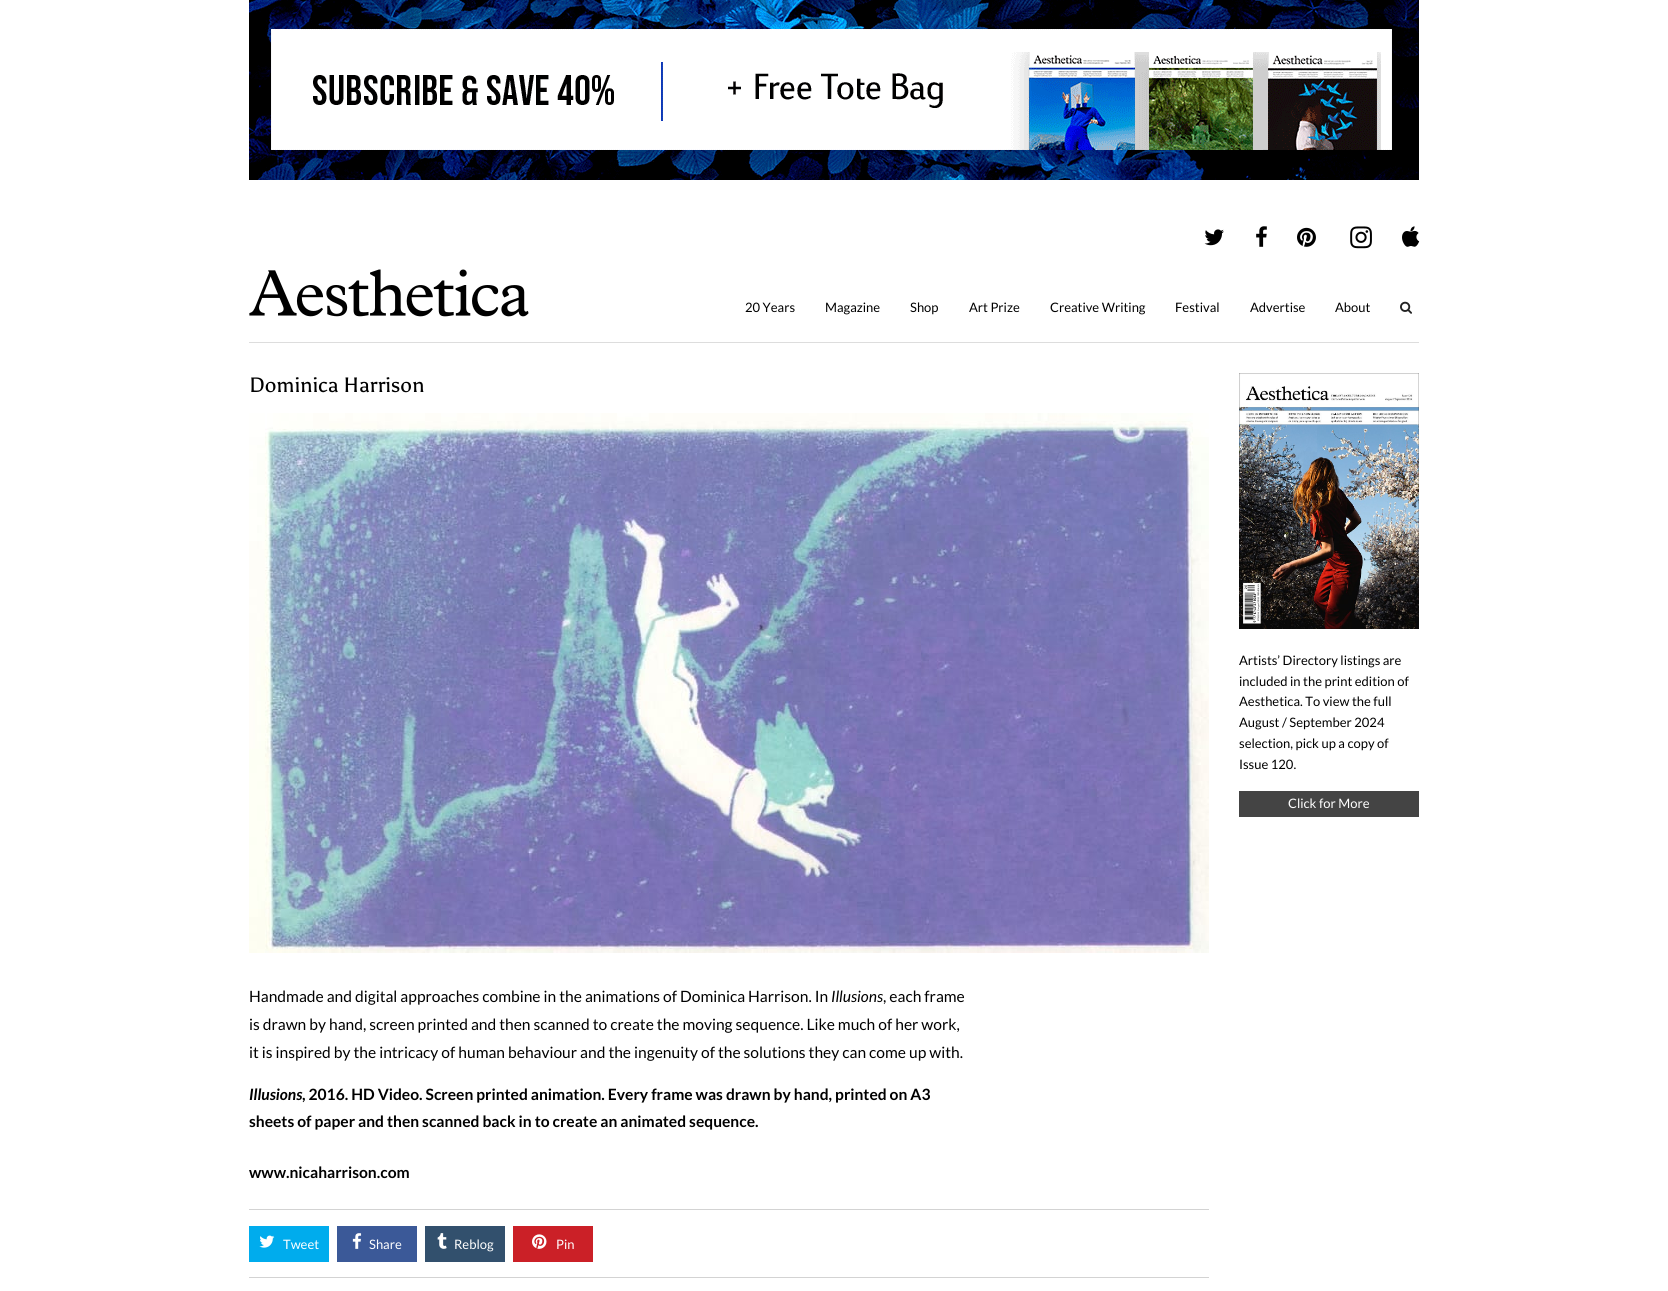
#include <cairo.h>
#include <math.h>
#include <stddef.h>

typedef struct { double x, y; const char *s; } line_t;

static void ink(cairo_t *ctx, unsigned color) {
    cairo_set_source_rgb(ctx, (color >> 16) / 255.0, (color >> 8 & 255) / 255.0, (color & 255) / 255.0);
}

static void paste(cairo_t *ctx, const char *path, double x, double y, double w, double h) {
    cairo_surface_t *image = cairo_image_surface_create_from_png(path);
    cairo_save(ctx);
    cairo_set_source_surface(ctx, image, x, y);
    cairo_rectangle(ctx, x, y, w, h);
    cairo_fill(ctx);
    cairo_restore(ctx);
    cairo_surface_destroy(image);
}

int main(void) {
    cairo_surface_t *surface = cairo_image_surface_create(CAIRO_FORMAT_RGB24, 1668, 1291);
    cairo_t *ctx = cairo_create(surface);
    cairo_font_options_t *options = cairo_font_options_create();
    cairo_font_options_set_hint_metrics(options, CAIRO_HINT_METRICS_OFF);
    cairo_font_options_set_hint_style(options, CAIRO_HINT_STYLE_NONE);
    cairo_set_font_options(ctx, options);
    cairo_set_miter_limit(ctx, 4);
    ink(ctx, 0xFFFFFF);
    cairo_paint(ctx);
    paste(ctx, "media/1.png", 249, 0, 1170, 180);
    ink(ctx, 0xDDDDDD);
    cairo_rectangle(ctx, 249, 342, 1170, 1);
    cairo_fill(ctx);
    paste(ctx, "media/2.png", 1204, 229, 20, 17);
    paste(ctx, "media/3.png", 1256, 226, 11, 21);
    paste(ctx, "media/4.png", 1297, 227, 19, 20);
    paste(ctx, "media/5.png", 1350, 226, 22, 23);
    paste(ctx, "media/6.png", 1402, 226, 18, 21);
    paste(ctx, "media/7.png", 249, 269, 280, 48);
    cairo_select_font_face(ctx, "Lato", CAIRO_FONT_SLANT_NORMAL, CAIRO_FONT_WEIGHT_NORMAL);
    cairo_set_font_size(ctx, 13);
    ink(ctx, 0x000000);
    {
        static const line_t items[] = {
            {745, 312, "20 Years"},
            {825, 312, "Magazine"},
            {910, 312, "Shop"},
            {969, 312, "Art Prize"},
            {1050, 312, "Creative Writing"},
            {1175, 312, "Festival"},
            {1250, 312, "Advertise"},
            {1335, 312, "About"},
        };
        for (size_t i = 0; i < sizeof items / sizeof *items; i++) {
            cairo_move_to(ctx, items[i].x, items[i].y);
            cairo_show_text(ctx, items[i].s);
        }
    }
    paste(ctx, "media/8.png", 1400, 301, 12, 13);
    cairo_select_font_face(ctx, "Asul", CAIRO_FONT_SLANT_NORMAL, CAIRO_FONT_WEIGHT_NORMAL);
    cairo_set_font_size(ctx, 20.75);
    cairo_move_to(ctx, 249, 392);
    cairo_show_text(ctx, "Dominica Harrison");
    paste(ctx, "media/9.png", 249, 413, 960, 540);
    cairo_select_font_face(ctx, "Lato", CAIRO_FONT_SLANT_NORMAL, CAIRO_FONT_WEIGHT_NORMAL);
    cairo_set_font_size(ctx, 15.6);
    cairo_move_to(ctx, 249, 1002);
    cairo_show_text(ctx, "Handmade and digital approaches combine in the animations of Dominica Harrison. In");
    cairo_select_font_face(ctx, "Lato", CAIRO_FONT_SLANT_ITALIC, CAIRO_FONT_WEIGHT_NORMAL);
    cairo_move_to(ctx, 831, 1002);
    cairo_show_text(ctx, "Illusions");
    cairo_select_font_face(ctx, "Lato", CAIRO_FONT_SLANT_NORMAL, CAIRO_FONT_WEIGHT_NORMAL);
    {
        static const line_t items[] = {
            {883, 1002, ", each frame"},
            {249, 1030, "is drawn by hand, screen printed and then scanned to create the moving sequence. Like much of her work,"},
            {249, 1058, "it is inspired by the intricacy of human behaviour and the ingenuity of the solutions they can come up with."},
        };
        for (size_t i = 0; i < sizeof items / sizeof *items; i++) {
            cairo_move_to(ctx, items[i].x, items[i].y);
            cairo_show_text(ctx, items[i].s);
        }
    }
    cairo_select_font_face(ctx, "Lato", CAIRO_FONT_SLANT_ITALIC, CAIRO_FONT_WEIGHT_BOLD);
    cairo_move_to(ctx, 249, 1100);
    cairo_show_text(ctx, "Illusions");
    cairo_select_font_face(ctx, "Lato", CAIRO_FONT_SLANT_NORMAL, CAIRO_FONT_WEIGHT_BOLD);
    {
        static const line_t items[] = {
            {302, 1100, ", 2016. HD Video. Screen printed animation. Every frame was drawn by hand, printed on A3"},
            {249, 1127, "sheets of paper and then scanned back in to create an animated sequence."},
            {249, 1178, "www.nicaharrison.com"},
        };
        for (size_t i = 0; i < sizeof items / sizeof *items; i++) {
            cairo_move_to(ctx, items[i].x, items[i].y);
            cairo_show_text(ctx, items[i].s);
        }
    }
    ink(ctx, 0xD3D3D3);
    cairo_rectangle(ctx, 249, 1209, 960, 1);
    cairo_fill(ctx);
    ink(ctx, 0x00ACED);
    cairo_rectangle(ctx, 249, 1226, 80, 36);
    cairo_fill(ctx);
    paste(ctx, "media/10.png", 259, 1235, 16, 13);
    cairo_select_font_face(ctx, "Lato", CAIRO_FONT_SLANT_NORMAL, CAIRO_FONT_WEIGHT_NORMAL);
    cairo_set_font_size(ctx, 13);
    ink(ctx, 0xFFFFFF);
    cairo_move_to(ctx, 283, 1249);
    cairo_show_text(ctx, "Tweet");
    ink(ctx, 0x3B5998);
    cairo_rectangle(ctx, 337, 1226, 80, 36);
    cairo_fill(ctx);
    paste(ctx, "media/11.png", 352, 1233, 10, 16);
    ink(ctx, 0xFFFFFF);
    cairo_move_to(ctx, 369, 1249);
    cairo_show_text(ctx, "Share");
    ink(ctx, 0x32506D);
    cairo_rectangle(ctx, 425, 1226, 80, 36);
    cairo_fill(ctx);
    paste(ctx, "media/12.png", 437, 1233, 10, 16);
    ink(ctx, 0xFFFFFF);
    cairo_move_to(ctx, 454, 1249);
    cairo_show_text(ctx, "Reblog");
    ink(ctx, 0xCB2027);
    cairo_rectangle(ctx, 513, 1226, 80, 36);
    cairo_fill(ctx);
    paste(ctx, "media/13.png", 532, 1234, 15, 15);
    ink(ctx, 0xFFFFFF);
    cairo_move_to(ctx, 556, 1249);
    cairo_show_text(ctx, "Pin");
    ink(ctx, 0xD3D3D3);
    cairo_rectangle(ctx, 249, 1277, 960, 1);
    cairo_fill(ctx);
    paste(ctx, "media/14.png", 1239, 373, 180, 256);
    ink(ctx, 0x000000);
    {
        static const line_t items[] = {
            {1239, 665, "Artists’ Directory listings are"},
            {1239, 686, "included in the print edition of"},
            {1239, 706, "Aesthetica. To view the full"},
            {1239, 727, "August / September 2024"},
            {1239, 748, "selection, pick up a copy of"},
            {1239, 769, "Issue 120."},
        };
        for (size_t i = 0; i < sizeof items / sizeof *items; i++) {
            cairo_move_to(ctx, items[i].x, items[i].y);
            cairo_show_text(ctx, items[i].s);
        }
    }
    ink(ctx, 0x444444);
    cairo_rectangle(ctx, 1239, 791, 180, 26);
    cairo_fill(ctx);
    ink(ctx, 0xFFFFFF);
    cairo_move_to(ctx, 1288, 808);
    cairo_show_text(ctx, "Click for More");
    cairo_surface_write_to_png(surface, "image.png");
    cairo_font_options_destroy(options);
    cairo_destroy(ctx);
    cairo_surface_destroy(surface);
    return 0;
}
